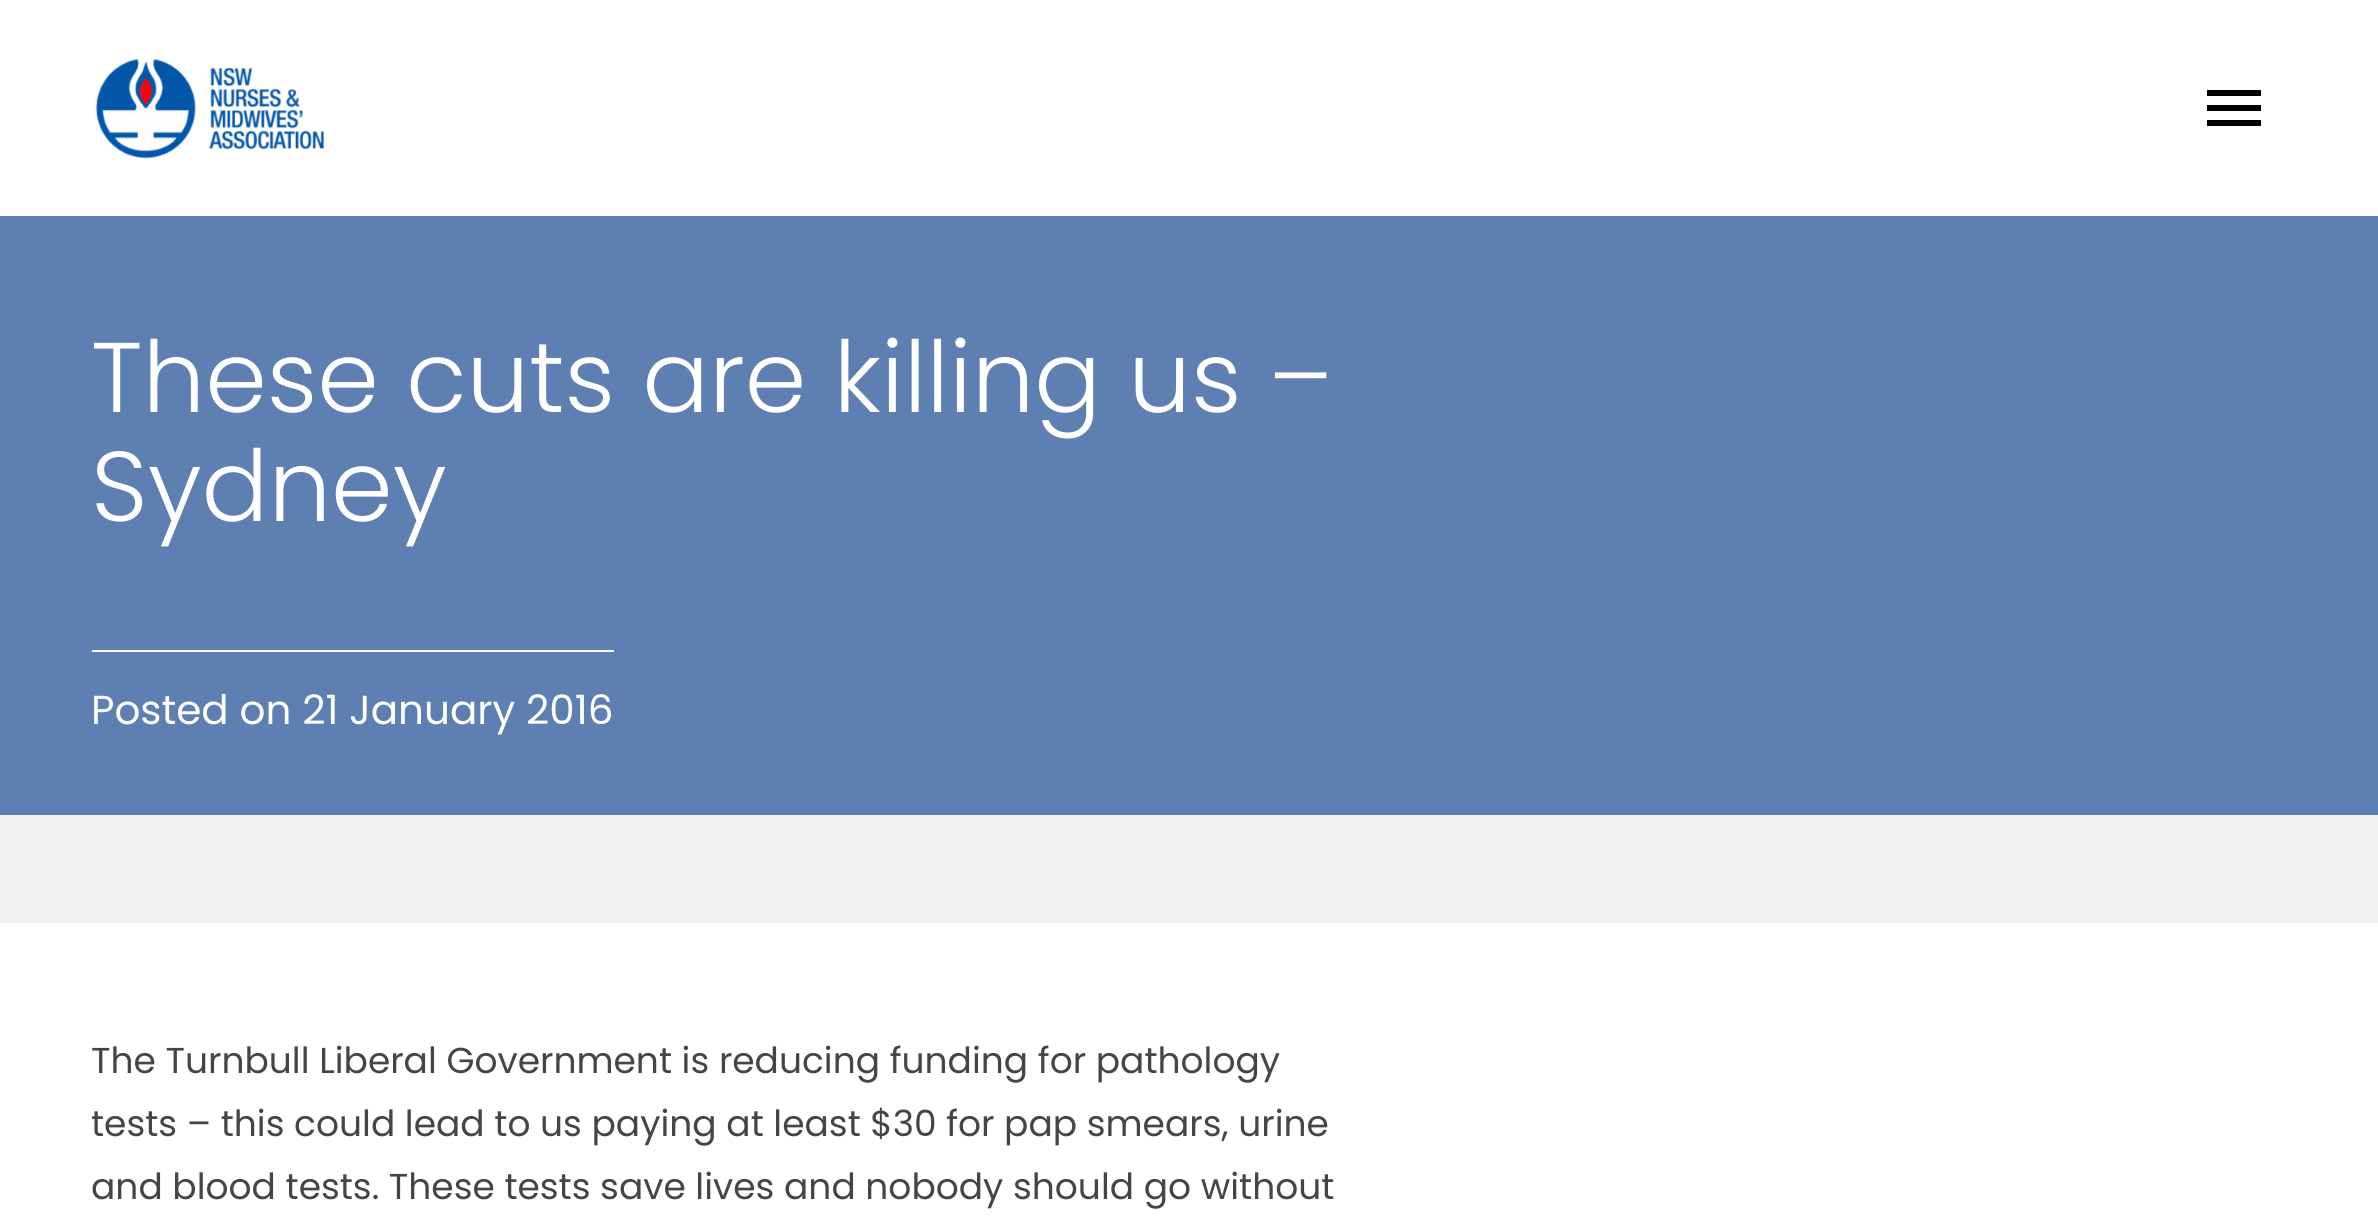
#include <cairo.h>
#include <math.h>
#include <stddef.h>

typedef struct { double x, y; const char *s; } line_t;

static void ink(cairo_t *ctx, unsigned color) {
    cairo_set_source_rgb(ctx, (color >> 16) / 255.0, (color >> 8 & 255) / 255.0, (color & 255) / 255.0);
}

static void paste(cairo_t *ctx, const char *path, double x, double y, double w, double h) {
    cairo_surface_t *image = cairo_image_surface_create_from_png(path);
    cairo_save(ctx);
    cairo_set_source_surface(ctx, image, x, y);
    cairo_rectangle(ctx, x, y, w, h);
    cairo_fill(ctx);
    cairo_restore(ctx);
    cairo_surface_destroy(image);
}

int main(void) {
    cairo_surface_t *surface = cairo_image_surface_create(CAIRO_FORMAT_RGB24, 2378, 1227);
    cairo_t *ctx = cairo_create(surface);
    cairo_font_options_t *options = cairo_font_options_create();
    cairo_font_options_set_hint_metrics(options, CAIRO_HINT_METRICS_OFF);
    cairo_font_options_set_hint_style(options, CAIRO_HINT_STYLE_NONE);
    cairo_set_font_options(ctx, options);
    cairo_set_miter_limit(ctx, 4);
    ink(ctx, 0xFFFFFF);
    cairo_paint(ctx);
    paste(ctx, "media/1.png", 95, 59, 229, 100);
    ink(ctx, 0x000000);
    cairo_new_path(ctx);
    cairo_move_to(ctx, 2207, 90);
    cairo_line_to(ctx, 2261, 90);
    cairo_line_to(ctx, 2261, 96);
    cairo_line_to(ctx, 2207, 96);
    cairo_close_path(ctx);
    cairo_move_to(ctx, 2207, 105);
    cairo_line_to(ctx, 2261, 105);
    cairo_line_to(ctx, 2261, 111);
    cairo_line_to(ctx, 2207, 111);
    cairo_close_path(ctx);
    cairo_move_to(ctx, 2207, 120);
    cairo_line_to(ctx, 2261, 120);
    cairo_line_to(ctx, 2261, 126);
    cairo_line_to(ctx, 2207, 126);
    cairo_close_path(ctx);
    cairo_fill(ctx);
    ink(ctx, 0x5E7FB1);
    cairo_rectangle(ctx, 0, 216, 2378, 599);
    cairo_fill(ctx);
    cairo_select_font_face(ctx, "Poppins Light", CAIRO_FONT_SLANT_NORMAL, CAIRO_FONT_WEIGHT_NORMAL);
    cairo_set_font_size(ctx, 99);
    ink(ctx, 0xFFFFFF);
    cairo_move_to(ctx, 91, 412);
    cairo_show_text(ctx, "These cuts are killing us –");
    cairo_move_to(ctx, 91, 521);
    cairo_show_text(ctx, "Sydney");
    cairo_rectangle(ctx, 92, 650, 522, 2);
    cairo_fill(ctx);
    cairo_select_font_face(ctx, "Poppins", CAIRO_FONT_SLANT_NORMAL, CAIRO_FONT_WEIGHT_NORMAL);
    cairo_set_font_size(ctx, 40.5);
    cairo_move_to(ctx, 91, 724);
    cairo_show_text(ctx, "Posted on 21 January 2016");
    ink(ctx, 0xF3F1EF);
    cairo_rectangle(ctx, 0, 815, 2378, 108);
    cairo_fill(ctx);
    cairo_set_font_size(ctx, 36);
    ink(ctx, 0x454545);
    {
        static const line_t items[] = {
            {91, 1073, "The Turnbull Liberal Government is reducing funding for pathology"},
            {91, 1136, "tests – this could lead to us paying at least $30 for pap smears, urine"},
            {91, 1199, "and blood tests. These tests save lives and nobody should go without"},
        };
        for (size_t i = 0; i < sizeof items / sizeof *items; i++) {
            cairo_move_to(ctx, items[i].x, items[i].y);
            cairo_show_text(ctx, items[i].s);
        }
    }
    cairo_surface_write_to_png(surface, "image.png");
    cairo_font_options_destroy(options);
    cairo_destroy(ctx);
    cairo_surface_destroy(surface);
    return 0;
}
